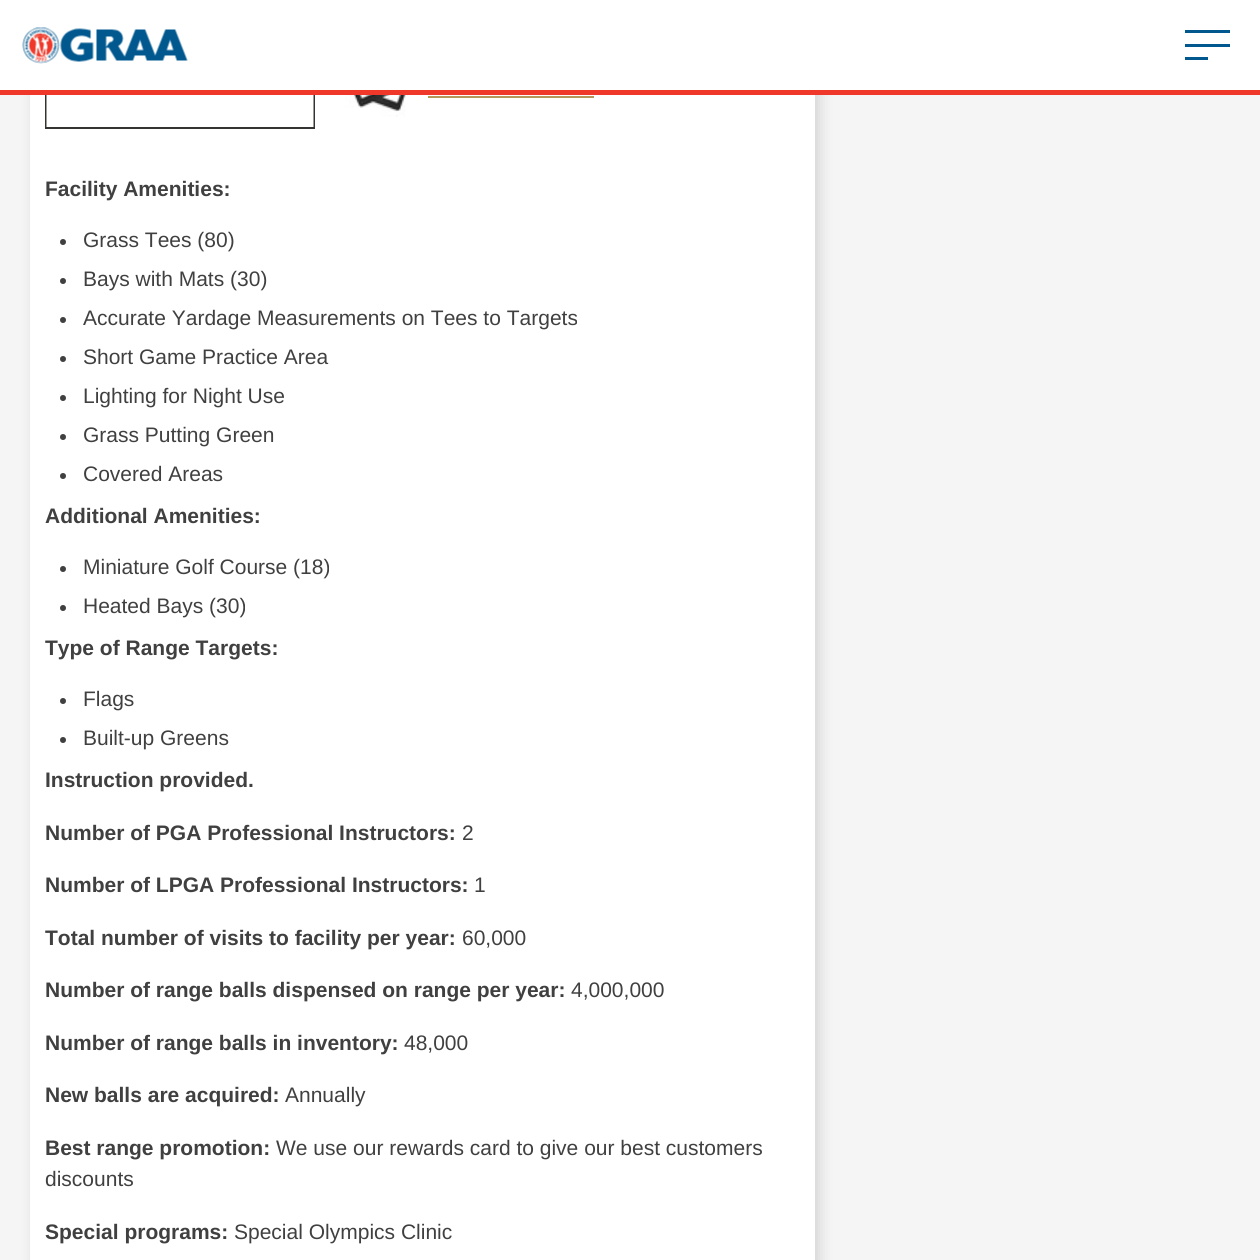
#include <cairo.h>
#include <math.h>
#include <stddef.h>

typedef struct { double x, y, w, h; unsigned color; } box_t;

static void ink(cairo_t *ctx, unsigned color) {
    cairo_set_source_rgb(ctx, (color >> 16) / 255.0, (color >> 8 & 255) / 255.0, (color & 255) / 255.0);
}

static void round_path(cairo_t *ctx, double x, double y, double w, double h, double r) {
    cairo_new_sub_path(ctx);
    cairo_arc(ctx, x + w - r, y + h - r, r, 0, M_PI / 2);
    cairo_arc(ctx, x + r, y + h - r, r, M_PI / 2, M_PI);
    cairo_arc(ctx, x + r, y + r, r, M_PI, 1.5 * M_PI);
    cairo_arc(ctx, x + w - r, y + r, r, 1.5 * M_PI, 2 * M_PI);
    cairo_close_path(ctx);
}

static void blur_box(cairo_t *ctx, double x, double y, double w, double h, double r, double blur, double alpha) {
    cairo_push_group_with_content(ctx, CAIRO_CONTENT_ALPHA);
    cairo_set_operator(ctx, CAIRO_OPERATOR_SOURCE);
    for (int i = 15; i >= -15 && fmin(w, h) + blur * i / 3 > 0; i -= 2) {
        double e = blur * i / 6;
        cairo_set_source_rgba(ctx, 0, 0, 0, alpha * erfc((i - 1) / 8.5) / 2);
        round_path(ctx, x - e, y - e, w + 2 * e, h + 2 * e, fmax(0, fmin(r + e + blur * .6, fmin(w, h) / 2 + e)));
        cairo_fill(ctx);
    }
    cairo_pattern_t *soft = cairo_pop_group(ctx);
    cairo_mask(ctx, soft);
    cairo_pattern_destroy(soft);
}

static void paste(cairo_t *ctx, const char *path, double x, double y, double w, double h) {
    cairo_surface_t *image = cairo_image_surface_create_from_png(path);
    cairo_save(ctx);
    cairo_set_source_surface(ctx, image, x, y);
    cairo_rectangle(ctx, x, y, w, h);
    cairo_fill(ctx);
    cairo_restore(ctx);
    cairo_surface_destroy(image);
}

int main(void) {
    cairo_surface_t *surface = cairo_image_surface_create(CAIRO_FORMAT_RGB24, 1260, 1260);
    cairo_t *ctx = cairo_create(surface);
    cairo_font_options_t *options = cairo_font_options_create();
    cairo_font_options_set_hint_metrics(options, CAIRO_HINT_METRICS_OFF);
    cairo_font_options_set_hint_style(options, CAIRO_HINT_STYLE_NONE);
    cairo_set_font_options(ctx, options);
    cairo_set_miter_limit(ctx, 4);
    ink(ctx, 0xF5F5F5);
    cairo_paint(ctx);
    ink(ctx, 0x000000);
    blur_box(ctx, 35, -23, 784, 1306, 0, 7.5, 0.15);
    ink(ctx, 0xFFFFFF);
    cairo_rectangle(ctx, 30, 95, 785, 1165);
    cairo_fill(ctx);
    cairo_rectangle(ctx, 46, -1, 268, 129);
    ink(ctx, 0x343433);
    cairo_stroke(ctx);
    ink(ctx, 0xFFFFFF);
    cairo_rectangle(ctx, 0, 0, 1260, 90);
    cairo_fill(ctx);
    ink(ctx, 0xEF3829);
    cairo_rectangle(ctx, 0, 90, 1260, 5);
    cairo_fill(ctx);
    paste(ctx, "media/1.png", 22, 27, 166, 37);
    {
        static const box_t items[] = {
            {1185, 44, 45, 3, 0x00588F},
            {1185, 30, 45, 3, 0x00588F},
            {1185, 57, 23, 3, 0x00588F},
        };
        for (size_t i = 0; i < sizeof items / sizeof *items; i++) {
            ink(ctx, items[i].color);
            cairo_rectangle(ctx, items[i].x, items[i].y, items[i].w, items[i].h);
            cairo_fill(ctx);
        }
    }
    paste(ctx, "media/2.png", 46, 95, 268, 32);
    paste(ctx, "media/3.png", 345, 95, 67, 22);
    ink(ctx, 0xB59759);
    cairo_rectangle(ctx, 428, 96, 166, 2);
    cairo_fill(ctx);
    cairo_select_font_face(ctx, "Liberation Sans", CAIRO_FONT_SLANT_NORMAL, CAIRO_FONT_WEIGHT_BOLD);
    cairo_set_font_size(ctx, 21);
    ink(ctx, 0x404040);
    cairo_move_to(ctx, 45, 196);
    cairo_show_text(ctx, "Facility Amenities:");
    cairo_new_path(ctx);
    cairo_arc(ctx, 63, 242, 3, 0, 2 * M_PI);
    cairo_fill(ctx);
    cairo_select_font_face(ctx, "Liberation Sans", CAIRO_FONT_SLANT_NORMAL, CAIRO_FONT_WEIGHT_NORMAL);
    cairo_move_to(ctx, 83, 247);
    cairo_show_text(ctx, "Grass Tees (80)");
    cairo_new_path(ctx);
    cairo_arc(ctx, 63, 281, 3, 0, 2 * M_PI);
    cairo_fill(ctx);
    cairo_move_to(ctx, 83, 286);
    cairo_show_text(ctx, "Bays with Mats (30)");
    cairo_new_path(ctx);
    cairo_arc(ctx, 63, 320, 3, 0, 2 * M_PI);
    cairo_fill(ctx);
    cairo_move_to(ctx, 83, 325);
    cairo_show_text(ctx, "Accurate Yardage Measurements on Tees to Targets");
    cairo_new_path(ctx);
    cairo_arc(ctx, 63, 359, 3, 0, 2 * M_PI);
    cairo_fill(ctx);
    cairo_move_to(ctx, 83, 364);
    cairo_show_text(ctx, "Short Game Practice Area");
    cairo_new_path(ctx);
    cairo_arc(ctx, 63, 398, 3, 0, 2 * M_PI);
    cairo_fill(ctx);
    cairo_move_to(ctx, 83, 403);
    cairo_show_text(ctx, "Lighting for Night Use");
    cairo_new_path(ctx);
    cairo_arc(ctx, 63, 437, 3, 0, 2 * M_PI);
    cairo_fill(ctx);
    cairo_move_to(ctx, 83, 442);
    cairo_show_text(ctx, "Grass Putting Green");
    cairo_new_path(ctx);
    cairo_arc(ctx, 63, 476, 3, 0, 2 * M_PI);
    cairo_fill(ctx);
    cairo_move_to(ctx, 83, 481);
    cairo_show_text(ctx, "Covered Areas");
    cairo_select_font_face(ctx, "Liberation Sans", CAIRO_FONT_SLANT_NORMAL, CAIRO_FONT_WEIGHT_BOLD);
    cairo_move_to(ctx, 45, 523);
    cairo_show_text(ctx, "Additional Amenities:");
    cairo_new_path(ctx);
    cairo_arc(ctx, 63, 569, 3, 0, 2 * M_PI);
    cairo_fill(ctx);
    cairo_select_font_face(ctx, "Liberation Sans", CAIRO_FONT_SLANT_NORMAL, CAIRO_FONT_WEIGHT_NORMAL);
    cairo_move_to(ctx, 83, 574);
    cairo_show_text(ctx, "Miniature Golf Course (18)");
    cairo_new_path(ctx);
    cairo_arc(ctx, 63, 608, 3, 0, 2 * M_PI);
    cairo_fill(ctx);
    cairo_move_to(ctx, 83, 613);
    cairo_show_text(ctx, "Heated Bays (30)");
    cairo_select_font_face(ctx, "Liberation Sans", CAIRO_FONT_SLANT_NORMAL, CAIRO_FONT_WEIGHT_BOLD);
    cairo_move_to(ctx, 45, 655);
    cairo_show_text(ctx, "Type of Range Targets:");
    cairo_new_path(ctx);
    cairo_arc(ctx, 63, 701, 3, 0, 2 * M_PI);
    cairo_fill(ctx);
    cairo_select_font_face(ctx, "Liberation Sans", CAIRO_FONT_SLANT_NORMAL, CAIRO_FONT_WEIGHT_NORMAL);
    cairo_move_to(ctx, 83, 706);
    cairo_show_text(ctx, "Flags");
    cairo_new_path(ctx);
    cairo_arc(ctx, 63, 740, 3, 0, 2 * M_PI);
    cairo_fill(ctx);
    cairo_move_to(ctx, 83, 745);
    cairo_show_text(ctx, "Built-up Greens");
    cairo_select_font_face(ctx, "Liberation Sans", CAIRO_FONT_SLANT_NORMAL, CAIRO_FONT_WEIGHT_BOLD);
    cairo_move_to(ctx, 45, 787);
    cairo_show_text(ctx, "Instruction provided.");
    cairo_move_to(ctx, 45, 840);
    cairo_show_text(ctx, "Number of PGA Professional Instructors:");
    cairo_select_font_face(ctx, "Liberation Sans", CAIRO_FONT_SLANT_NORMAL, CAIRO_FONT_WEIGHT_NORMAL);
    cairo_move_to(ctx, 462, 840);
    cairo_show_text(ctx, "2");
    cairo_select_font_face(ctx, "Liberation Sans", CAIRO_FONT_SLANT_NORMAL, CAIRO_FONT_WEIGHT_BOLD);
    cairo_move_to(ctx, 45, 892);
    cairo_show_text(ctx, "Number of LPGA Professional Instructors:");
    cairo_select_font_face(ctx, "Liberation Sans", CAIRO_FONT_SLANT_NORMAL, CAIRO_FONT_WEIGHT_NORMAL);
    cairo_move_to(ctx, 474, 892);
    cairo_show_text(ctx, "1");
    cairo_select_font_face(ctx, "Liberation Sans", CAIRO_FONT_SLANT_NORMAL, CAIRO_FONT_WEIGHT_BOLD);
    cairo_move_to(ctx, 45, 945);
    cairo_show_text(ctx, "Total number of visits to facility per year:");
    cairo_select_font_face(ctx, "Liberation Sans", CAIRO_FONT_SLANT_NORMAL, CAIRO_FONT_WEIGHT_NORMAL);
    cairo_move_to(ctx, 462, 945);
    cairo_show_text(ctx, "60,000");
    cairo_select_font_face(ctx, "Liberation Sans", CAIRO_FONT_SLANT_NORMAL, CAIRO_FONT_WEIGHT_BOLD);
    cairo_move_to(ctx, 45, 997);
    cairo_show_text(ctx, "Number of range balls dispensed on range per year:");
    cairo_select_font_face(ctx, "Liberation Sans", CAIRO_FONT_SLANT_NORMAL, CAIRO_FONT_WEIGHT_NORMAL);
    cairo_move_to(ctx, 571, 997);
    cairo_show_text(ctx, "4,000,000");
    cairo_select_font_face(ctx, "Liberation Sans", CAIRO_FONT_SLANT_NORMAL, CAIRO_FONT_WEIGHT_BOLD);
    cairo_move_to(ctx, 45, 1050);
    cairo_show_text(ctx, "Number of range balls in inventory:");
    cairo_select_font_face(ctx, "Liberation Sans", CAIRO_FONT_SLANT_NORMAL, CAIRO_FONT_WEIGHT_NORMAL);
    cairo_move_to(ctx, 404, 1050);
    cairo_show_text(ctx, "48,000");
    cairo_select_font_face(ctx, "Liberation Sans", CAIRO_FONT_SLANT_NORMAL, CAIRO_FONT_WEIGHT_BOLD);
    cairo_move_to(ctx, 45, 1102);
    cairo_show_text(ctx, "New balls are acquired:");
    cairo_select_font_face(ctx, "Liberation Sans", CAIRO_FONT_SLANT_NORMAL, CAIRO_FONT_WEIGHT_NORMAL);
    cairo_move_to(ctx, 285, 1102);
    cairo_show_text(ctx, "Annually");
    cairo_select_font_face(ctx, "Liberation Sans", CAIRO_FONT_SLANT_NORMAL, CAIRO_FONT_WEIGHT_BOLD);
    cairo_move_to(ctx, 45, 1155);
    cairo_show_text(ctx, "Best range promotion:");
    cairo_select_font_face(ctx, "Liberation Sans", CAIRO_FONT_SLANT_NORMAL, CAIRO_FONT_WEIGHT_NORMAL);
    cairo_move_to(ctx, 276, 1155);
    cairo_show_text(ctx, "We use our rewards card to give our best customers");
    cairo_move_to(ctx, 45, 1186);
    cairo_show_text(ctx, "discounts");
    cairo_select_font_face(ctx, "Liberation Sans", CAIRO_FONT_SLANT_NORMAL, CAIRO_FONT_WEIGHT_BOLD);
    cairo_move_to(ctx, 45, 1239);
    cairo_show_text(ctx, "Special programs:");
    cairo_select_font_face(ctx, "Liberation Sans", CAIRO_FONT_SLANT_NORMAL, CAIRO_FONT_WEIGHT_NORMAL);
    cairo_move_to(ctx, 234, 1239);
    cairo_show_text(ctx, "Special Olympics Clinic");
    cairo_surface_write_to_png(surface, "image.png");
    cairo_font_options_destroy(options);
    cairo_destroy(ctx);
    cairo_surface_destroy(surface);
    return 0;
}
